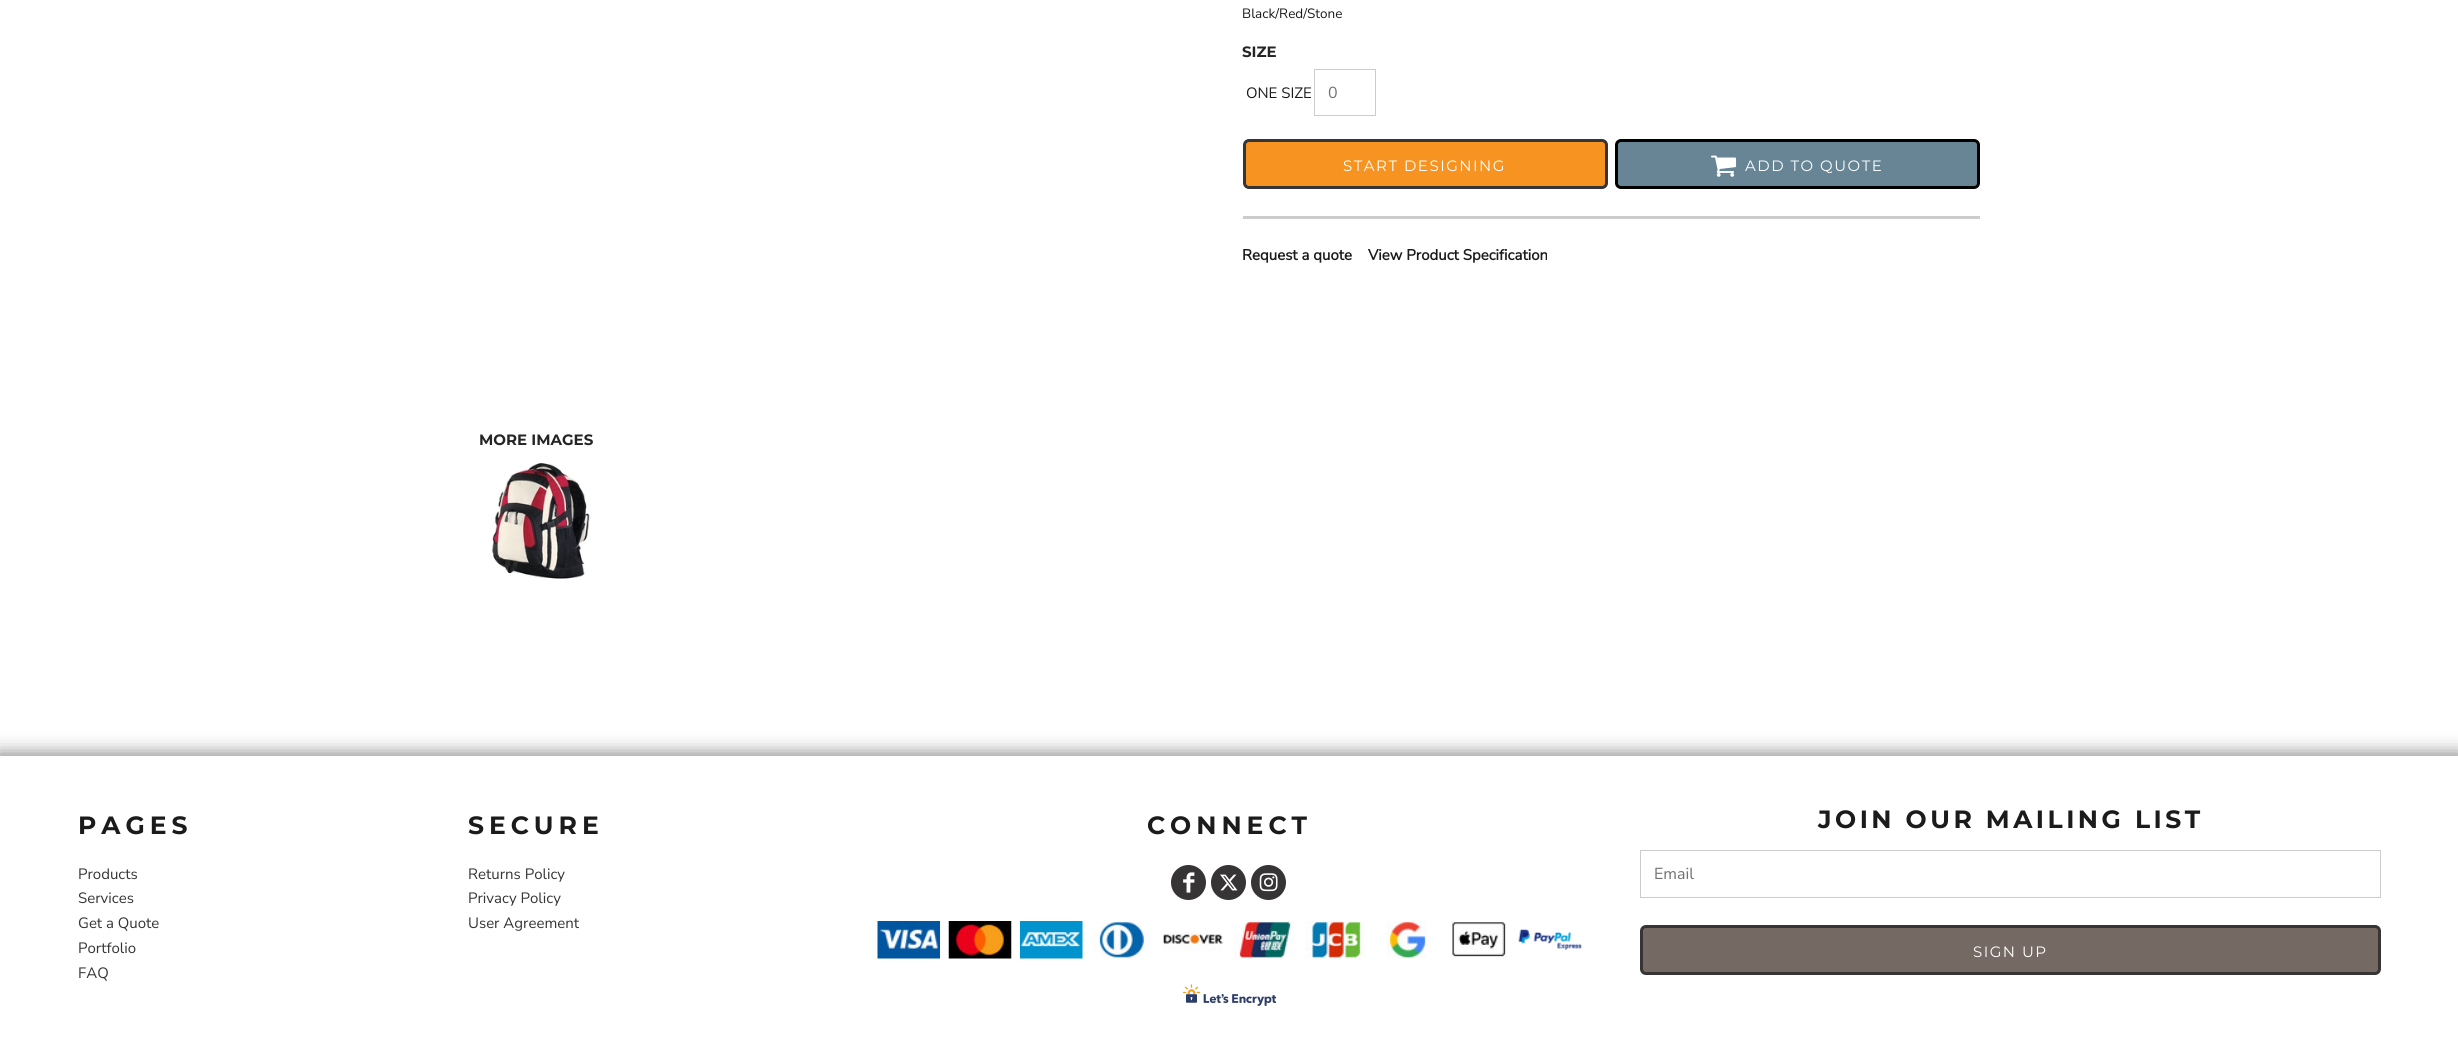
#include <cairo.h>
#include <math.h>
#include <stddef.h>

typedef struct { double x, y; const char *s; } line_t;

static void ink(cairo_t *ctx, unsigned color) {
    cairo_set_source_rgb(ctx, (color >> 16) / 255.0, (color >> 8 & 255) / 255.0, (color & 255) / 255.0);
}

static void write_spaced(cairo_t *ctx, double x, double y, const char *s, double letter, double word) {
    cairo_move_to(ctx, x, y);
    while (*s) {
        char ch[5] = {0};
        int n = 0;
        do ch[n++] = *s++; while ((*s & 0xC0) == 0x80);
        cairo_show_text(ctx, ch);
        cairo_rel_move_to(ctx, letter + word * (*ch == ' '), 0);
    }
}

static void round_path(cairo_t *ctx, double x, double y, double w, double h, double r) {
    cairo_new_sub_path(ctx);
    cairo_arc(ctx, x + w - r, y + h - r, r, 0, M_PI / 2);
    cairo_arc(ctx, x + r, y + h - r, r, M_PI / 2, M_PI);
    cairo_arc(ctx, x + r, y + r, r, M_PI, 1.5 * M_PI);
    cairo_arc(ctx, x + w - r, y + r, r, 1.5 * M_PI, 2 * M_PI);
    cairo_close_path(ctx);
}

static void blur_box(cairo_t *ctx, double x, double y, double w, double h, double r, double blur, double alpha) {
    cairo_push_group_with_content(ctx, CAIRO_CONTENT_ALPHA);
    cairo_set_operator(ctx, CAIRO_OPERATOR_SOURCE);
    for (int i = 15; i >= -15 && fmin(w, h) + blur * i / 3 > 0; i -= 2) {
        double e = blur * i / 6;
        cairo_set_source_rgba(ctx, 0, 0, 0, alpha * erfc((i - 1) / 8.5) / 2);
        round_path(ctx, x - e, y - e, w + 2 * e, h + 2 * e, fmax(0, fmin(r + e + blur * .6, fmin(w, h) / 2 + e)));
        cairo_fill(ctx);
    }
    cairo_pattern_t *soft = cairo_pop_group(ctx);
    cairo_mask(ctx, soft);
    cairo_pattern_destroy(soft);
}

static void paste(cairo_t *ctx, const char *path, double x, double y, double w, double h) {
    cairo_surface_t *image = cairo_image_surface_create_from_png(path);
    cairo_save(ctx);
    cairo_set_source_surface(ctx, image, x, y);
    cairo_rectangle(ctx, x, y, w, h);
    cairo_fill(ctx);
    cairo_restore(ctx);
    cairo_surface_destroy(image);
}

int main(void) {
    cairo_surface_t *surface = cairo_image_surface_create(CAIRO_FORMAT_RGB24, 2458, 1052);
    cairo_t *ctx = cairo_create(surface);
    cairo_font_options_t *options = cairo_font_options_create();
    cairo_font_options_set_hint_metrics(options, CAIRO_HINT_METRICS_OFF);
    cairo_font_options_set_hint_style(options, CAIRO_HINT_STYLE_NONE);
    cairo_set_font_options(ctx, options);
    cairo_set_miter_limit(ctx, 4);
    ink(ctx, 0xFFFFFF);
    cairo_paint(ctx);
    cairo_select_font_face(ctx, "Nunito Sans ExtraLight", CAIRO_FONT_SLANT_NORMAL, CAIRO_FONT_WEIGHT_NORMAL);
    cairo_set_font_size(ctx, 13.5);
    ink(ctx, 0x1C1B1B);
    cairo_move_to(ctx, 1242, 18);
    cairo_show_text(ctx, "Black/Red/Stone");
    cairo_select_font_face(ctx, "Montserrat", CAIRO_FONT_SLANT_NORMAL, CAIRO_FONT_WEIGHT_BOLD);
    cairo_set_font_size(ctx, 15);
    ink(ctx, 0x252525);
    cairo_move_to(ctx, 1242, 57);
    cairo_show_text(ctx, "SIZE");
    cairo_select_font_face(ctx, "Nunito Sans ExtraLight", CAIRO_FONT_SLANT_NORMAL, CAIRO_FONT_WEIGHT_NORMAL);
    ink(ctx, 0x1C1B1B);
    cairo_move_to(ctx, 1246, 98);
    cairo_show_text(ctx, "ONE SIZE");
    cairo_rectangle(ctx, 1314.5, 69.5, 61, 46);
    ink(ctx, 0xCCCCCC);
    cairo_set_line_width(ctx, 1);
    cairo_stroke(ctx);
    cairo_set_font_size(ctx, 16);
    ink(ctx, 0x717171);
    cairo_move_to(ctx, 1328, 98);
    cairo_show_text(ctx, "0");
    ink(ctx, 0xF69321);
    round_path(ctx, 1244.5, 140.5, 362, 47, 4.5);
    cairo_fill_preserve(ctx);
    ink(ctx, 0x363434);
    cairo_set_line_width(ctx, 3);
    cairo_stroke(ctx);
    cairo_select_font_face(ctx, "Montserrat", CAIRO_FONT_SLANT_NORMAL, CAIRO_FONT_WEIGHT_NORMAL);
    cairo_set_font_size(ctx, 15);
    ink(ctx, 0xFFFFFF);
    write_spaced(ctx, 1343, 171, "START DESIGNING", 1.5, 0);
    ink(ctx, 0x678594);
    round_path(ctx, 1616.5, 140.5, 362, 47, 4.5);
    cairo_fill_preserve(ctx);
    ink(ctx, 0x000000);
    cairo_stroke(ctx);
    paste(ctx, "media/1.png", 1711, 155, 26, 22);
    ink(ctx, 0xFFFFFF);
    write_spaced(ctx, 1745, 171, "ADD TO QUOTE", 1.5, 0);
    ink(ctx, 0xCCCCCC);
    cairo_rectangle(ctx, 1243, 216, 737, 3);
    cairo_fill(ctx);
    cairo_select_font_face(ctx, "Nunito Sans", CAIRO_FONT_SLANT_NORMAL, CAIRO_FONT_WEIGHT_BOLD);
    ink(ctx, 0x1C1B1B);
    cairo_move_to(ctx, 1242, 260);
    cairo_show_text(ctx, "Request a quote");
    cairo_move_to(ctx, 1368, 260);
    cairo_show_text(ctx, "View Product Specification");
    cairo_select_font_face(ctx, "Montserrat", CAIRO_FONT_SLANT_NORMAL, CAIRO_FONT_WEIGHT_BOLD);
    ink(ctx, 0x252525);
    cairo_move_to(ctx, 479, 445);
    cairo_show_text(ctx, "MORE IMAGES");
    paste(ctx, "media/2.png", 491, 463, 100, 116);
    ink(ctx, 0x000000);
    blur_box(ctx, -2, 754, 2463, 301, 0, 9.5, 0.5);
    ink(ctx, 0xFFFFFF);
    cairo_rectangle(ctx, 0, 756, 2458, 296);
    cairo_fill(ctx);
    cairo_set_font_size(ctx, 25);
    ink(ctx, 0x1C1B1B);
    write_spaced(ctx, 78, 834, "PAGES", 5, 0);
    cairo_select_font_face(ctx, "Nunito Sans ExtraLight", CAIRO_FONT_SLANT_NORMAL, CAIRO_FONT_WEIGHT_NORMAL);
    cairo_set_font_size(ctx, 15);
    ink(ctx, 0x363434);
    {
        static const line_t items[] = {
            {78, 879, "Products"},
            {78, 903, "Services"},
            {78, 928, "Get a Quote"},
            {78, 953, "Portfolio"},
            {78, 978, "FAQ"},
        };
        for (size_t i = 0; i < sizeof items / sizeof *items; i++) {
            cairo_move_to(ctx, items[i].x, items[i].y);
            cairo_show_text(ctx, items[i].s);
        }
    }
    cairo_select_font_face(ctx, "Montserrat", CAIRO_FONT_SLANT_NORMAL, CAIRO_FONT_WEIGHT_BOLD);
    cairo_set_font_size(ctx, 25);
    ink(ctx, 0x1C1B1B);
    write_spaced(ctx, 468, 834, "SECURE", 5, 0);
    cairo_select_font_face(ctx, "Nunito Sans ExtraLight", CAIRO_FONT_SLANT_NORMAL, CAIRO_FONT_WEIGHT_NORMAL);
    cairo_set_font_size(ctx, 15);
    ink(ctx, 0x363434);
    {
        static const line_t items[] = {
            {468, 879, "Returns Policy"},
            {468, 903, "Privacy Policy"},
            {468, 928, "User Agreement"},
        };
        for (size_t i = 0; i < sizeof items / sizeof *items; i++) {
            cairo_move_to(ctx, items[i].x, items[i].y);
            cairo_show_text(ctx, items[i].s);
        }
    }
    cairo_select_font_face(ctx, "Montserrat", CAIRO_FONT_SLANT_NORMAL, CAIRO_FONT_WEIGHT_BOLD);
    cairo_set_font_size(ctx, 25);
    ink(ctx, 0x1C1B1B);
    write_spaced(ctx, 1147, 834, "CONNECT", 5, 0);
    ink(ctx, 0x363434);
    cairo_new_path(ctx);
    cairo_arc(ctx, 1188.5, 882.5, 17.5, 0, 2 * M_PI);
    cairo_fill(ctx);
    paste(ctx, "media/3.png", 1183, 872, 12, 21);
    cairo_arc(ctx, 1228.5, 882.5, 17.5, 0, 2 * M_PI);
    cairo_fill(ctx);
    paste(ctx, "media/4.png", 1220, 874, 18, 17);
    cairo_arc(ctx, 1268.5, 882.5, 17.5, 0, 2 * M_PI);
    cairo_fill(ctx);
    paste(ctx, "media/5.png", 1259, 873, 19, 19);
    paste(ctx, "media/6.png", 877, 921, 63, 38);
    paste(ctx, "media/7.png", 948, 921, 64, 38);
    paste(ctx, "media/8.png", 1020, 921, 63, 38);
    paste(ctx, "media/9.png", 1093, 921, 58, 38);
    paste(ctx, "media/10.png", 1162, 931, 61, 20);
    paste(ctx, "media/11.png", 1234, 921, 60, 38);
    paste(ctx, "media/12.png", 1305, 921, 60, 38);
    paste(ctx, "media/13.png", 1386, 921, 41, 38);
    paste(ctx, "media/14.png", 1451, 922, 55, 37);
    paste(ctx, "media/15.png", 1518, 929, 64, 21);
    paste(ctx, "media/16.png", 1183, 984, 93, 22);
    ink(ctx, 0x1C1B1B);
    write_spaced(ctx, 1818, 828, "JOIN OUR MAILING LIST", 3.5, 0);
    cairo_rectangle(ctx, 1640.5, 850.5, 740, 47);
    ink(ctx, 0xCCCCCC);
    cairo_set_line_width(ctx, 1);
    cairo_stroke(ctx);
    cairo_select_font_face(ctx, "Nunito Sans ExtraLight", CAIRO_FONT_SLANT_NORMAL, CAIRO_FONT_WEIGHT_NORMAL);
    cairo_set_font_size(ctx, 16);
    ink(ctx, 0x717171);
    cairo_move_to(ctx, 1654, 879);
    cairo_show_text(ctx, "Email");
    ink(ctx, 0x746A63);
    round_path(ctx, 1641.5, 926.5, 738, 47, 4.5);
    cairo_fill_preserve(ctx);
    ink(ctx, 0x363434);
    cairo_set_line_width(ctx, 3);
    cairo_stroke(ctx);
    cairo_select_font_face(ctx, "Montserrat", CAIRO_FONT_SLANT_NORMAL, CAIRO_FONT_WEIGHT_NORMAL);
    cairo_set_font_size(ctx, 15);
    ink(ctx, 0xFFFFFF);
    write_spaced(ctx, 1973, 957, "SIGN UP", 1.5, 0);
    cairo_surface_write_to_png(surface, "image.png");
    cairo_font_options_destroy(options);
    cairo_destroy(ctx);
    cairo_surface_destroy(surface);
    return 0;
}
